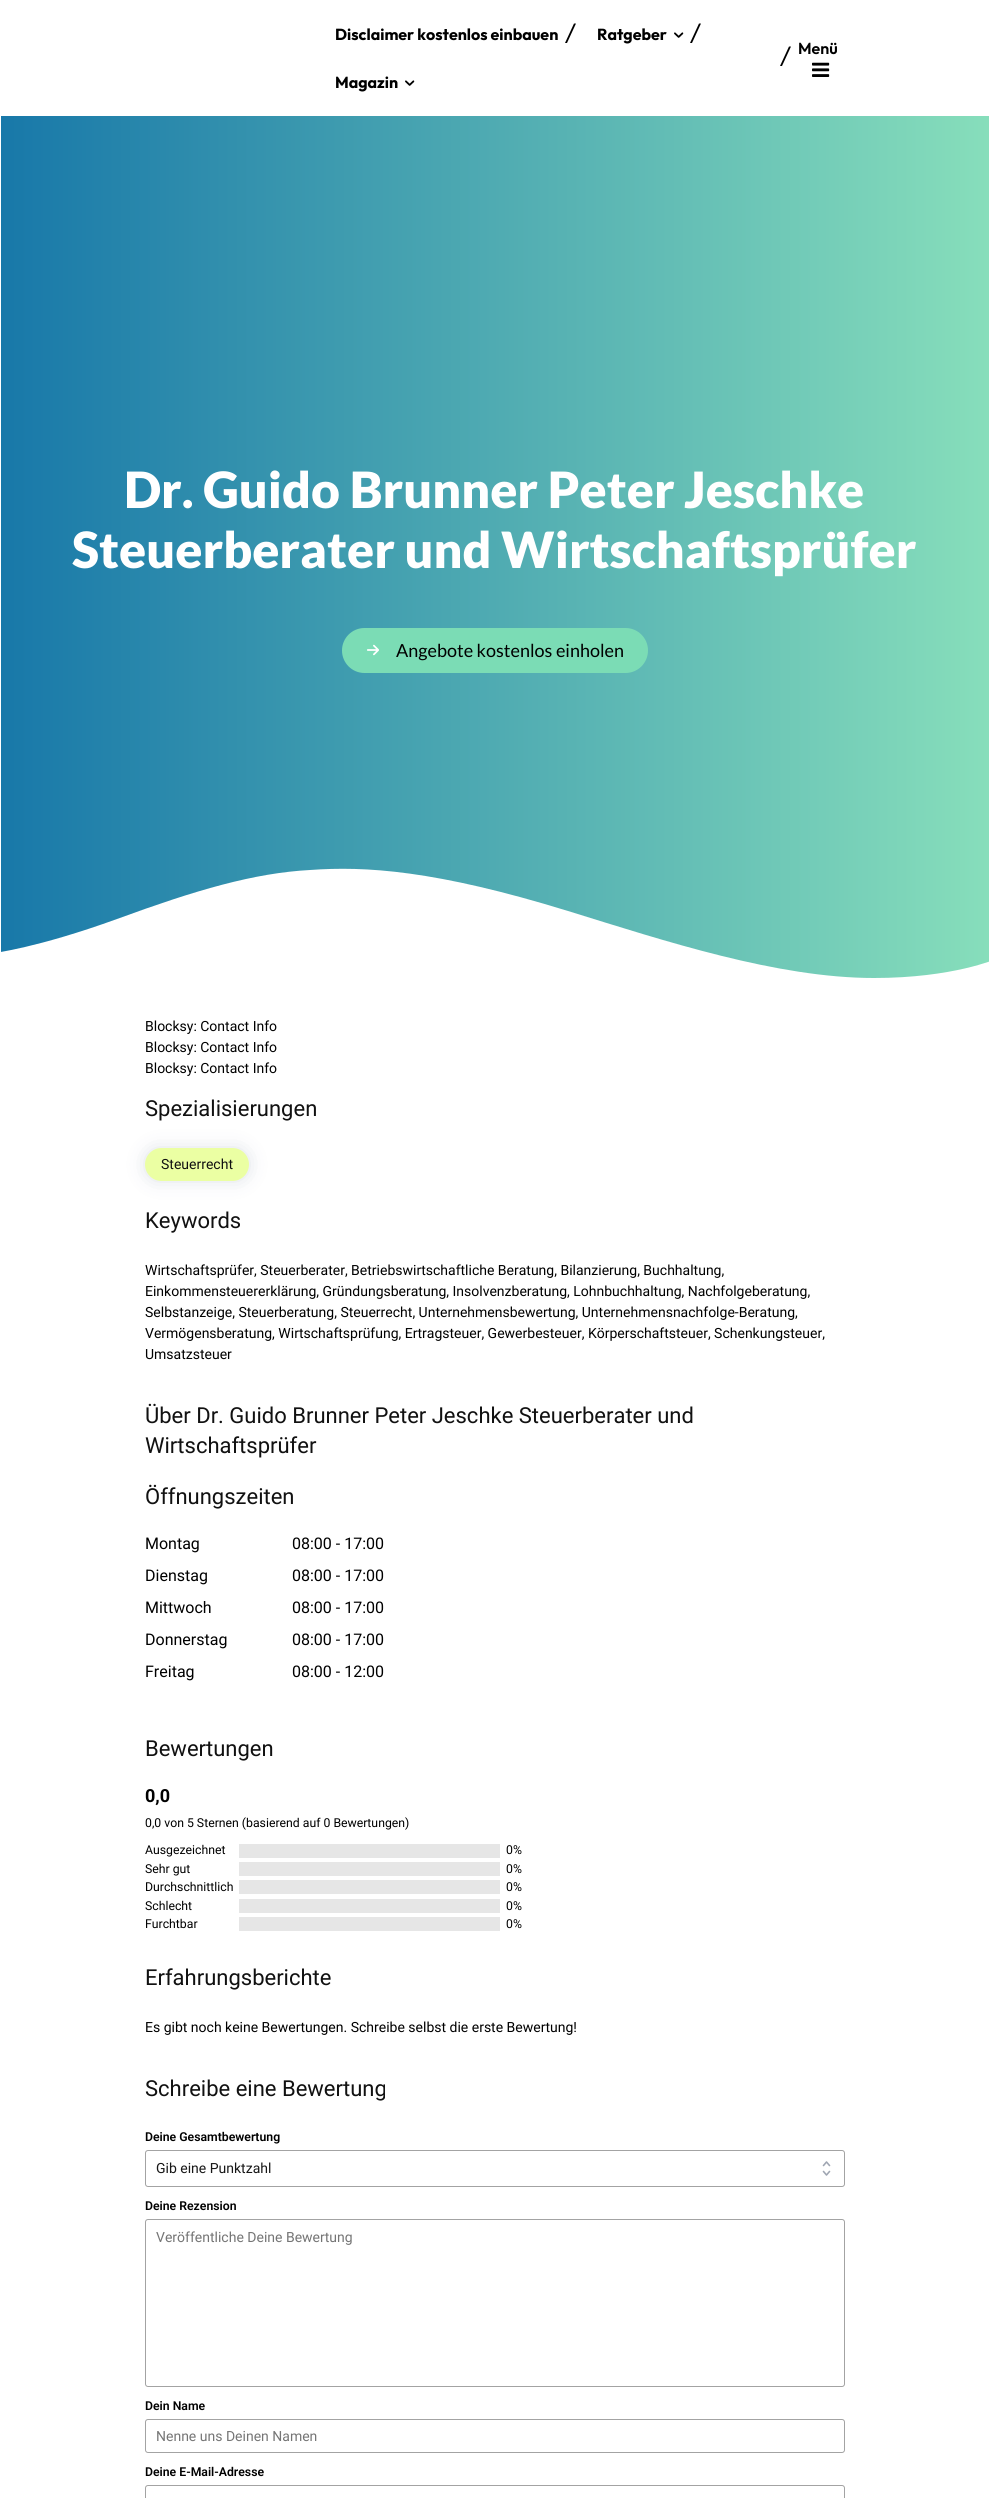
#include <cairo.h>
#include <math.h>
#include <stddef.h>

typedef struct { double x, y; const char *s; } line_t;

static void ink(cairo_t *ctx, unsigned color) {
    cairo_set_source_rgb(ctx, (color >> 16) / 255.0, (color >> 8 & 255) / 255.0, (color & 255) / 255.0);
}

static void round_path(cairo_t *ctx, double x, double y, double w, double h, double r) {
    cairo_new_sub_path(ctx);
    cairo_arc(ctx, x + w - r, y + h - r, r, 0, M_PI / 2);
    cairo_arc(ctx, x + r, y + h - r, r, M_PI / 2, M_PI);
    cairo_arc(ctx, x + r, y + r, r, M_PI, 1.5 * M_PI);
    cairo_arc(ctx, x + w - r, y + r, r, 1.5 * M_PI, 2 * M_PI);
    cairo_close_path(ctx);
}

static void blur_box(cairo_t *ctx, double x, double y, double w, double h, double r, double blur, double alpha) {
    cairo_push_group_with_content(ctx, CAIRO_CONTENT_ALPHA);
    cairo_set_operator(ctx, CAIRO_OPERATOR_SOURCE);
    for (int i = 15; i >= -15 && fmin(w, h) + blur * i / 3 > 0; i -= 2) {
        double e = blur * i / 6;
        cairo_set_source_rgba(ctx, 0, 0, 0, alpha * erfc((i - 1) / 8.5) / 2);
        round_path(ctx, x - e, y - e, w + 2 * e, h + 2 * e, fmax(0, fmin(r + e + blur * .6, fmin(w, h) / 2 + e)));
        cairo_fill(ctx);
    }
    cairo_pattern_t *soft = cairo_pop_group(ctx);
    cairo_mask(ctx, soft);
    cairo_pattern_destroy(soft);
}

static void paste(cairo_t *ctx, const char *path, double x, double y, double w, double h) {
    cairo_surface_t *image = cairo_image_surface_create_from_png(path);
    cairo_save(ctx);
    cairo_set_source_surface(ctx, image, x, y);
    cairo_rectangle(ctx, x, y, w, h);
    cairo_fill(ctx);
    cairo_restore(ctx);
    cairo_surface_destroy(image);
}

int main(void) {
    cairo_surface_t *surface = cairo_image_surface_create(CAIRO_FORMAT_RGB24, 989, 2498);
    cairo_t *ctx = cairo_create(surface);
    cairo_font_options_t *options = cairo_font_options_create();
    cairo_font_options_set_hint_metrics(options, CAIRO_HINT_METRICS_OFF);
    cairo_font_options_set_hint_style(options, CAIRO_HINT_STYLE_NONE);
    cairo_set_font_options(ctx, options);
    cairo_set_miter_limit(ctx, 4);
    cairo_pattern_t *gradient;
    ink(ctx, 0xFFFFFF);
    cairo_paint(ctx);
    cairo_select_font_face(ctx, "Outfit", CAIRO_FONT_SLANT_NORMAL, CAIRO_FONT_WEIGHT_BOLD);
    cairo_set_font_size(ctx, 16);
    ink(ctx, 0x000000);
    cairo_move_to(ctx, 335, 40);
    cairo_show_text(ctx, "Disclaimer kostenlos einbauen");
    cairo_new_path(ctx);
    cairo_move_to(ctx, 574, 23.5);
    cairo_line_to(ctx, 565, 43);
    cairo_line_to(ctx, 567, 43);
    cairo_line_to(ctx, 576, 23.5);
    cairo_close_path(ctx);
    cairo_fill(ctx);
    cairo_move_to(ctx, 597, 40);
    cairo_show_text(ctx, "Ratgeber");
    paste(ctx, "media/1.png", 674, 32, 10, 6);
    cairo_new_path(ctx);
    cairo_move_to(ctx, 699, 23.5);
    cairo_line_to(ctx, 690, 43);
    cairo_line_to(ctx, 692, 43);
    cairo_line_to(ctx, 701, 23.5);
    cairo_close_path(ctx);
    cairo_fill(ctx);
    cairo_move_to(ctx, 335, 88);
    cairo_show_text(ctx, "Magazin");
    paste(ctx, "media/1.png", 405, 80, 10, 6);
    cairo_new_path(ctx);
    cairo_move_to(ctx, 789, 46.5);
    cairo_line_to(ctx, 780, 66);
    cairo_line_to(ctx, 782, 66);
    cairo_line_to(ctx, 791, 46.5);
    cairo_close_path(ctx);
    cairo_fill(ctx);
    cairo_select_font_face(ctx, "Outfit SemiBold", CAIRO_FONT_SLANT_NORMAL, CAIRO_FONT_WEIGHT_NORMAL);
    cairo_move_to(ctx, 798, 54);
    cairo_show_text(ctx, "Menü");
    paste(ctx, "media/2.png", 812, 62, 18, 15);
    gradient = cairo_pattern_create_linear(0.5, 566, 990, 566);
    cairo_pattern_add_color_stop_rgba(gradient, 0, 0.094, 0.471, 0.663, 1);
    cairo_pattern_add_color_stop_rgba(gradient, 1, 0.529, 0.871, 0.733, 1);
    cairo_set_source(ctx, gradient);
    cairo_pattern_destroy(gradient);
    cairo_rectangle(ctx, 1, 116, 988, 862);
    cairo_fill(ctx);
    cairo_select_font_face(ctx, "Lato Black", CAIRO_FONT_SLANT_NORMAL, CAIRO_FONT_WEIGHT_NORMAL);
    cairo_set_font_size(ctx, 50);
    ink(ctx, 0xFFFFFF);
    cairo_move_to(ctx, 124, 508);
    cairo_show_text(ctx, "Dr. Guido Brunner Peter Jeschke");
    cairo_move_to(ctx, 72, 568);
    cairo_show_text(ctx, "Steuerberater und Wirtschaftsprüfer");
    ink(ctx, 0x7BDCB5);
    round_path(ctx, 342, 628, 306, 45, 22.5);
    cairo_fill(ctx);
    paste(ctx, "media/3.png", 367, 644, 12, 12);
    cairo_select_font_face(ctx, "Lato", CAIRO_FONT_SLANT_NORMAL, CAIRO_FONT_WEIGHT_NORMAL);
    cairo_set_font_size(ctx, 18);
    ink(ctx, 0x000000);
    cairo_move_to(ctx, 396, 657);
    cairo_show_text(ctx, "Angebote kostenlos einholen");
    cairo_save(ctx);
    cairo_rectangle(ctx, 1, 817, 988, 199);
    cairo_clip(ctx);
    ink(ctx, 0xFFFFFF);
    cairo_new_path(ctx);
    cairo_move_to(ctx, 874, 978);
    cairo_curve_to(ctx, 777, 978, 665, 941, 568, 911);
    cairo_curve_to(ctx, 435, 870, 365, 866, 310, 870);
    cairo_curve_to(ctx, 254, 873, 196, 890, 117, 919);
    cairo_curve_to(ctx, 37, 948, -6, 953, -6, 953);
    cairo_line_to(ctx, -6, 1027);
    cairo_line_to(ctx, 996, 1027);
    cairo_line_to(ctx, 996, 959);
    cairo_curve_to(ctx, 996, 959, 953, 978, 874, 978);
    cairo_close_path(ctx);
    cairo_fill(ctx);
    cairo_restore(ctx);
    cairo_select_font_face(ctx, "Roboto", CAIRO_FONT_SLANT_NORMAL, CAIRO_FONT_WEIGHT_NORMAL);
    cairo_set_font_size(ctx, 14);
    {
        static const line_t items[] = {
            {145, 1031, "Blocksy: Contact Info"},
            {145, 1052, "Blocksy: Contact Info"},
            {145, 1073, "Blocksy: Contact Info"},
        };
        for (size_t i = 0; i < sizeof items / sizeof *items; i++) {
            cairo_move_to(ctx, items[i].x, items[i].y);
            cairo_show_text(ctx, items[i].s);
        }
    }
    ink(ctx, 0x223865);
    blur_box(ctx, 148, 1151, 98, 27, 13.5, 10, 0.2);
    cairo_set_font_size(ctx, 22);
    ink(ctx, 0x111111);
    cairo_move_to(ctx, 145, 1116);
    cairo_show_text(ctx, "Spezialisierungen");
    ink(ctx, 0xEBFFA3);
    round_path(ctx, 145, 1148, 104, 33, 16.5);
    cairo_fill(ctx);
    cairo_set_font_size(ctx, 14);
    ink(ctx, 0x111111);
    cairo_move_to(ctx, 161, 1169);
    cairo_show_text(ctx, "Steuerrecht");
    cairo_set_font_size(ctx, 22);
    cairo_move_to(ctx, 145, 1228);
    cairo_show_text(ctx, "Keywords");
    cairo_set_font_size(ctx, 14);
    ink(ctx, 0x000000);
    {
        static const line_t items[] = {
            {145, 1275, "Wirtschaftsprüfer, Steuerberater, Betriebswirtschaftliche Beratung, Bilanzierung, Buchhaltung,"},
            {145, 1296, "Einkommensteuererklärung, Gründungsberatung, Insolvenzberatung, Lohnbuchhaltung, Nachfolgeberatung,"},
            {145, 1317, "Selbstanzeige, Steuerberatung, Steuerrecht, Unternehmensbewertung, Unternehmensnachfolge-Beratung,"},
            {145, 1338, "Vermögensberatung, Wirtschaftsprüfung, Ertragsteuer, Gewerbesteuer, Körperschaftsteuer, Schenkungsteuer,"},
            {145, 1359, "Umsatzsteuer"},
        };
        for (size_t i = 0; i < sizeof items / sizeof *items; i++) {
            cairo_move_to(ctx, items[i].x, items[i].y);
            cairo_show_text(ctx, items[i].s);
        }
    }
    cairo_set_font_size(ctx, 22);
    ink(ctx, 0x111111);
    {
        static const line_t items[] = {
            {145, 1423, "Über Dr. Guido Brunner Peter Jeschke Steuerberater und"},
            {145, 1453, "Wirtschaftsprüfer"},
            {145, 1504, "Öffnungszeiten"},
        };
        for (size_t i = 0; i < sizeof items / sizeof *items; i++) {
            cairo_move_to(ctx, items[i].x, items[i].y);
            cairo_show_text(ctx, items[i].s);
        }
    }
    cairo_set_font_size(ctx, 16);
    ink(ctx, 0x000000);
    {
        static const line_t items[] = {
            {145, 1549, "Montag"},
            {292, 1549, "08:00 - 17:00"},
            {145, 1581, "Dienstag"},
            {292, 1581, "08:00 - 17:00"},
            {145, 1613, "Mittwoch"},
            {292, 1613, "08:00 - 17:00"},
            {145, 1645, "Donnerstag"},
            {292, 1645, "08:00 - 17:00"},
            {145, 1677, "Freitag"},
            {292, 1677, "08:00 - 12:00"},
        };
        for (size_t i = 0; i < sizeof items / sizeof *items; i++) {
            cairo_move_to(ctx, items[i].x, items[i].y);
            cairo_show_text(ctx, items[i].s);
        }
    }
    cairo_set_font_size(ctx, 22);
    ink(ctx, 0x111111);
    cairo_move_to(ctx, 145, 1756);
    cairo_show_text(ctx, "Bewertungen");
    cairo_select_font_face(ctx, "Roboto", CAIRO_FONT_SLANT_NORMAL, CAIRO_FONT_WEIGHT_BOLD);
    cairo_set_font_size(ctx, 18);
    ink(ctx, 0x000000);
    cairo_move_to(ctx, 145, 1802);
    cairo_show_text(ctx, "0,0");
    cairo_select_font_face(ctx, "Roboto", CAIRO_FONT_SLANT_NORMAL, CAIRO_FONT_WEIGHT_NORMAL);
    cairo_set_font_size(ctx, 12.25);
    cairo_move_to(ctx, 145, 1827);
    cairo_show_text(ctx, "0,0 von 5 Sternen (basierend auf 0 Bewertungen)");
    cairo_move_to(ctx, 145, 1854);
    cairo_show_text(ctx, "Ausgezeichnet");
    ink(ctx, 0xE6E6E6);
    cairo_rectangle(ctx, 239, 1844, 261, 14);
    cairo_fill(ctx);
    ink(ctx, 0x000000);
    cairo_move_to(ctx, 506, 1854);
    cairo_show_text(ctx, "0%");
    cairo_move_to(ctx, 145, 1873);
    cairo_show_text(ctx, "Sehr gut");
    ink(ctx, 0xE6E6E6);
    cairo_rectangle(ctx, 239, 1862, 261, 14);
    cairo_fill(ctx);
    ink(ctx, 0x000000);
    cairo_move_to(ctx, 506, 1873);
    cairo_show_text(ctx, "0%");
    cairo_move_to(ctx, 145, 1891);
    cairo_show_text(ctx, "Durchschnittlich");
    ink(ctx, 0xE6E6E6);
    cairo_rectangle(ctx, 239, 1880, 261, 14);
    cairo_fill(ctx);
    ink(ctx, 0x000000);
    cairo_move_to(ctx, 506, 1891);
    cairo_show_text(ctx, "0%");
    cairo_move_to(ctx, 145, 1910);
    cairo_show_text(ctx, "Schlecht");
    ink(ctx, 0xE6E6E6);
    cairo_rectangle(ctx, 239, 1899, 261, 14);
    cairo_fill(ctx);
    ink(ctx, 0x000000);
    cairo_move_to(ctx, 506, 1910);
    cairo_show_text(ctx, "0%");
    cairo_move_to(ctx, 145, 1928);
    cairo_show_text(ctx, "Furchtbar");
    ink(ctx, 0xE6E6E6);
    cairo_rectangle(ctx, 239, 1917, 261, 14);
    cairo_fill(ctx);
    ink(ctx, 0x000000);
    cairo_move_to(ctx, 506, 1928);
    cairo_show_text(ctx, "0%");
    cairo_set_font_size(ctx, 22);
    ink(ctx, 0x111111);
    cairo_move_to(ctx, 145, 1985);
    cairo_show_text(ctx, "Erfahrungsberichte");
    cairo_set_font_size(ctx, 14);
    ink(ctx, 0x000000);
    cairo_move_to(ctx, 145, 2032);
    cairo_show_text(ctx, "Es gibt noch keine Bewertungen. Schreibe selbst die erste Bewertung!");
    cairo_set_font_size(ctx, 22);
    ink(ctx, 0x111111);
    cairo_move_to(ctx, 145, 2096);
    cairo_show_text(ctx, "Schreibe eine Bewertung");
    cairo_select_font_face(ctx, "Roboto SemiBold", CAIRO_FONT_SLANT_NORMAL, CAIRO_FONT_WEIGHT_NORMAL);
    cairo_set_font_size(ctx, 12.25);
    ink(ctx, 0x000000);
    cairo_move_to(ctx, 145, 2141);
    cairo_show_text(ctx, "Deine Gesamtbewertung");
    cairo_new_path(ctx);
    cairo_move_to(ctx, 823.5, 2165.5);
    cairo_line_to(ctx, 826.5, 2162);
    cairo_line_to(ctx, 829.5, 2165.5);
    cairo_move_to(ctx, 829.5, 2171.5);
    cairo_line_to(ctx, 826.5, 2175);
    cairo_line_to(ctx, 823.5, 2171.5);
    ink(ctx, 0x9FA6B2);
    cairo_set_line_width(ctx, 1.6);
    cairo_set_line_cap(ctx, CAIRO_LINE_CAP_ROUND);
    cairo_set_line_join(ctx, CAIRO_LINE_JOIN_ROUND);
    cairo_stroke(ctx);
    round_path(ctx, 145.5, 2150.5, 699, 36, 2.5);
    ink(ctx, 0xA3A3A3);
    cairo_set_line_width(ctx, 1);
    cairo_set_line_cap(ctx, CAIRO_LINE_CAP_BUTT);
    cairo_set_line_join(ctx, CAIRO_LINE_JOIN_MITER);
    cairo_stroke(ctx);
    cairo_select_font_face(ctx, "Roboto", CAIRO_FONT_SLANT_NORMAL, CAIRO_FONT_WEIGHT_NORMAL);
    cairo_set_font_size(ctx, 14);
    ink(ctx, 0x171717);
    cairo_move_to(ctx, 156, 2173);
    cairo_show_text(ctx, "Gib eine Punktzahl");
    cairo_select_font_face(ctx, "Roboto SemiBold", CAIRO_FONT_SLANT_NORMAL, CAIRO_FONT_WEIGHT_NORMAL);
    cairo_set_font_size(ctx, 12.25);
    ink(ctx, 0x000000);
    cairo_move_to(ctx, 145, 2210);
    cairo_show_text(ctx, "Deine Rezension");
    round_path(ctx, 145.5, 2219.5, 699, 167, 2.5);
    ink(ctx, 0xA3A3A3);
    cairo_stroke(ctx);
    cairo_select_font_face(ctx, "Roboto", CAIRO_FONT_SLANT_NORMAL, CAIRO_FONT_WEIGHT_NORMAL);
    cairo_set_font_size(ctx, 14);
    ink(ctx, 0x757575);
    cairo_move_to(ctx, 156, 2242);
    cairo_show_text(ctx, "Veröffentliche Deine Bewertung");
    cairo_select_font_face(ctx, "Roboto SemiBold", CAIRO_FONT_SLANT_NORMAL, CAIRO_FONT_WEIGHT_NORMAL);
    cairo_set_font_size(ctx, 12.25);
    ink(ctx, 0x000000);
    cairo_move_to(ctx, 145, 2410);
    cairo_show_text(ctx, "Dein Name");
    round_path(ctx, 145.5, 2419.5, 699, 33, 2.5);
    ink(ctx, 0xA3A3A3);
    cairo_stroke(ctx);
    cairo_select_font_face(ctx, "Roboto", CAIRO_FONT_SLANT_NORMAL, CAIRO_FONT_WEIGHT_NORMAL);
    cairo_set_font_size(ctx, 14);
    ink(ctx, 0x757575);
    cairo_move_to(ctx, 156, 2441);
    cairo_show_text(ctx, "Nenne uns Deinen Namen");
    cairo_select_font_face(ctx, "Roboto SemiBold", CAIRO_FONT_SLANT_NORMAL, CAIRO_FONT_WEIGHT_NORMAL);
    cairo_set_font_size(ctx, 12.25);
    ink(ctx, 0x000000);
    cairo_move_to(ctx, 145, 2476);
    cairo_show_text(ctx, "Deine E-Mail-Adresse");
    round_path(ctx, 145.5, 2485.5, 699, 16, 2.5);
    ink(ctx, 0xA3A3A3);
    cairo_stroke(ctx);
    cairo_surface_write_to_png(surface, "image.png");
    cairo_font_options_destroy(options);
    cairo_destroy(ctx);
    cairo_surface_destroy(surface);
    return 0;
}
